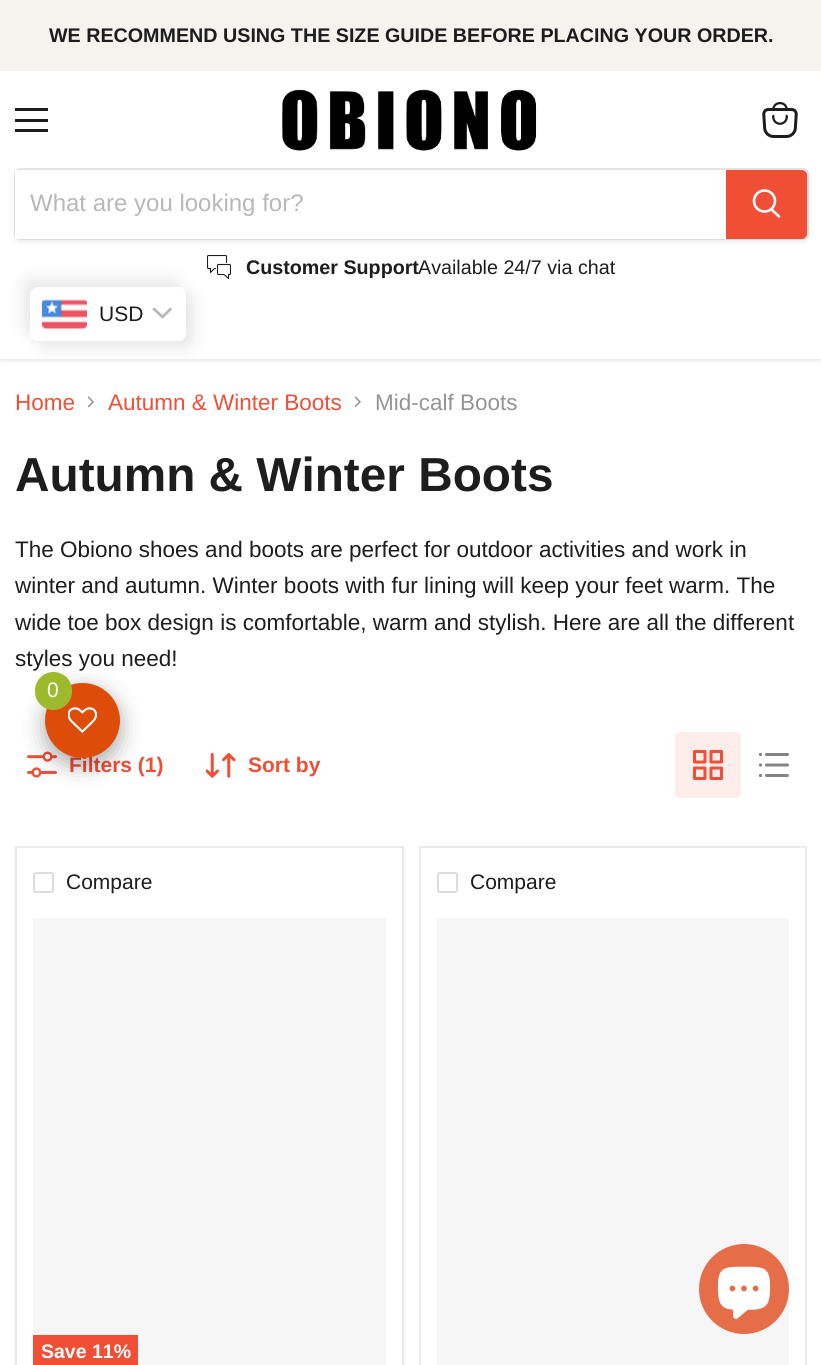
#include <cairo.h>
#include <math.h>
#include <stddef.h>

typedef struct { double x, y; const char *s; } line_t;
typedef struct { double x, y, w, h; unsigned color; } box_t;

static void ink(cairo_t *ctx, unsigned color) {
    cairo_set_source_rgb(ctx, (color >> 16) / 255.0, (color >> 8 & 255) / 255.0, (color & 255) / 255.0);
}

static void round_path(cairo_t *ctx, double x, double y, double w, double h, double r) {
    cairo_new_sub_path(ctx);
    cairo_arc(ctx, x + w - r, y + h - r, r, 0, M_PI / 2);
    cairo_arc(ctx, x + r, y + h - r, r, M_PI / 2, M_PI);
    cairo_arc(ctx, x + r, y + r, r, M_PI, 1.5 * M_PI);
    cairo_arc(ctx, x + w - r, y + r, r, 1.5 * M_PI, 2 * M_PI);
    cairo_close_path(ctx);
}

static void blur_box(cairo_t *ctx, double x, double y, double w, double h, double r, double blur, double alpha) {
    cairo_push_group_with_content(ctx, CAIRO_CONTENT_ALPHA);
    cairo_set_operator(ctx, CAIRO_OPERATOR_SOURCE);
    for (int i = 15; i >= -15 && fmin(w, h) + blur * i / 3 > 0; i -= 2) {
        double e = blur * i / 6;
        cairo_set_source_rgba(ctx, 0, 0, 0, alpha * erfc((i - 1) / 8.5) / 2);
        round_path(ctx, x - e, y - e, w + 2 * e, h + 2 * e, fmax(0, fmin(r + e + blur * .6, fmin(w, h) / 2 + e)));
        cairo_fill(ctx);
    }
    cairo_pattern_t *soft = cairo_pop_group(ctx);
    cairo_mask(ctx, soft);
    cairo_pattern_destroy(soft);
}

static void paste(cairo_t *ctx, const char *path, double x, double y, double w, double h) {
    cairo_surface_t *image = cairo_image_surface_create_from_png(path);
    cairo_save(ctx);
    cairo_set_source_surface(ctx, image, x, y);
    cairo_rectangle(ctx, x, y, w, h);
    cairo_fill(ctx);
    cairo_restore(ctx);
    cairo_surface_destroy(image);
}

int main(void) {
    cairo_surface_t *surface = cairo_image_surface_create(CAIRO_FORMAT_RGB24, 821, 1365);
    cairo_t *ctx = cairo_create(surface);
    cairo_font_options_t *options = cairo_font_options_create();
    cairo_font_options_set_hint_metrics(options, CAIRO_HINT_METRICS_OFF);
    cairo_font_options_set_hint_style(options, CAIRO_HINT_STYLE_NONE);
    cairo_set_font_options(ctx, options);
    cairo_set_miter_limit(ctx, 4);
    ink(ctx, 0xFFFFFF);
    cairo_paint(ctx);
    ink(ctx, 0x808080);
    blur_box(ctx, 0, 72, 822, 288, 0, 3, 0.25);
    ink(ctx, 0xF5F3EE);
    cairo_rectangle(ctx, 0, 0, 821, 71);
    cairo_fill(ctx);
    cairo_select_font_face(ctx, "Liberation Sans", CAIRO_FONT_SLANT_NORMAL, CAIRO_FONT_WEIGHT_BOLD);
    cairo_set_font_size(ctx, 19.7);
    ink(ctx, 0x1D1D1D);
    cairo_move_to(ctx, 49, 42);
    cairo_show_text(ctx, "WE RECOMMEND USING THE SIZE GUIDE BEFORE PLACING YOUR ORDER.");
    {
        static const box_t items[] = {
            {0, 71, 821, 288, 0xFFFFFF},
            {15, 108, 33, 3, 0x1D1D1D},
            {15, 119, 33, 3, 0x1D1D1D},
            {15, 129, 33, 3, 0x1D1D1D},
        };
        for (size_t i = 0; i < sizeof items / sizeof *items; i++) {
            ink(ctx, items[i].color);
            cairo_rectangle(ctx, items[i].x, items[i].y, items[i].w, items[i].h);
            cairo_fill(ctx);
        }
    }
    paste(ctx, "media/1.png", 282, 89, 255, 62);
    ink(ctx, 0x808080);
    blur_box(ctx, 14, 171, 795, 72, 6, 2, 0.11);
    round_path(ctx, 15, 169, 793, 70, 5);
    cairo_set_source_rgba(ctx, 0.502, 0.502, 0.502, 0.2);
    cairo_stroke(ctx);
    ink(ctx, 0xFFFFFF);
    cairo_rectangle(ctx, 15, 170, 711, 69);
    cairo_fill(ctx);
    cairo_select_font_face(ctx, "Liberation Sans", CAIRO_FONT_SLANT_NORMAL, CAIRO_FONT_WEIGHT_NORMAL);
    cairo_set_font_size(ctx, 24);
    ink(ctx, 0xB8B8B8);
    cairo_move_to(ctx, 30, 211);
    cairo_show_text(ctx, "What are you looking for?");
    ink(ctx, 0xF04F36);
    cairo_new_path(ctx);
    cairo_move_to(ctx, 727, 171);
    cairo_line_to(ctx, 802, 171);
    cairo_curve_to(ctx, 804, 171, 806, 173, 806, 175);
    cairo_line_to(ctx, 806, 234);
    cairo_curve_to(ctx, 806, 236, 804, 238, 802, 238);
    cairo_line_to(ctx, 727, 238);
    cairo_close_path(ctx);
    cairo_fill_preserve(ctx);
    cairo_stroke(ctx);
    cairo_new_path(ctx);
    cairo_move_to(ctx, 779, 216.5);
    cairo_line_to(ctx, 771.5, 209.5);
    ink(ctx, 0xFFFFFF);
    cairo_set_line_width(ctx, 2.6);
    cairo_set_line_cap(ctx, CAIRO_LINE_CAP_ROUND);
    cairo_stroke(ctx);
    cairo_arc(ctx, 764.5, 201, 10.5, 0, 2 * M_PI);
    cairo_set_line_cap(ctx, CAIRO_LINE_CAP_BUTT);
    cairo_stroke(ctx);
    paste(ctx, "media/2.png", 207, 255, 24, 24);
    cairo_select_font_face(ctx, "Liberation Sans", CAIRO_FONT_SLANT_NORMAL, CAIRO_FONT_WEIGHT_BOLD);
    cairo_set_font_size(ctx, 19.7);
    ink(ctx, 0x1D1D1D);
    cairo_move_to(ctx, 246, 274);
    cairo_show_text(ctx, "Customer Support");
    cairo_select_font_face(ctx, "Liberation Sans", CAIRO_FONT_SLANT_NORMAL, CAIRO_FONT_WEIGHT_NORMAL);
    cairo_move_to(ctx, 418, 274);
    cairo_show_text(ctx, "Available 24/7 via chat");
    paste(ctx, "media/3.png", 762, 102, 36, 36);
    ink(ctx, 0xE8E8E8);
    blur_box(ctx, 23, 279, 156, 54, 8, 7.5, 1);
    blur_box(ctx, 38, 294, 156, 54, 8, 7.5, 1);
    ink(ctx, 0xFFFFFF);
    round_path(ctx, 30, 287, 156, 54, 8);
    cairo_fill(ctx);
    paste(ctx, "media/4.png", 42, 299, 45, 30);
    cairo_set_font_size(ctx, 21);
    ink(ctx, 0x1D1D1D);
    cairo_move_to(ctx, 99, 321);
    cairo_show_text(ctx, "USD");
    cairo_new_path(ctx);
    cairo_move_to(ctx, 154, 309);
    cairo_line_to(ctx, 162.5, 317);
    cairo_line_to(ctx, 170.5, 309);
    ink(ctx, 0xB7B7B7);
    cairo_set_line_width(ctx, 2.7);
    cairo_set_line_cap(ctx, CAIRO_LINE_CAP_ROUND);
    cairo_set_line_join(ctx, CAIRO_LINE_JOIN_ROUND);
    cairo_stroke(ctx);
    cairo_set_font_size(ctx, 22.5);
    ink(ctx, 0xF04F36);
    cairo_move_to(ctx, 15, 410);
    cairo_show_text(ctx, "Home");
    paste(ctx, "media/5.png", 87, 396, 7, 12);
    cairo_move_to(ctx, 108, 410);
    cairo_show_text(ctx, "Autumn & Winter Boots");
    paste(ctx, "media/6.png", 354, 396, 7, 12);
    ink(ctx, 0x949494);
    cairo_move_to(ctx, 375, 410);
    cairo_show_text(ctx, "Mid-calf Boots");
    cairo_select_font_face(ctx, "Liberation Sans", CAIRO_FONT_SLANT_NORMAL, CAIRO_FONT_WEIGHT_BOLD);
    cairo_set_font_size(ctx, 47.75);
    ink(ctx, 0x1D1D1D);
    cairo_move_to(ctx, 15, 491);
    cairo_show_text(ctx, "Autumn & Winter Boots");
    cairo_select_font_face(ctx, "Liberation Sans", CAIRO_FONT_SLANT_NORMAL, CAIRO_FONT_WEIGHT_NORMAL);
    cairo_set_font_size(ctx, 22.5);
    {
        static const line_t items[] = {
            {15, 557, "The Obiono shoes and boots are perfect for outdoor activities and work in"},
            {15, 593, "winter and autumn. Winter boots with fur lining will keep your feet warm. The"},
            {15, 630, "wide toe box design is comfortable, warm and stylish. Here are all the different"},
            {15, 666, "styles you need!"},
        };
        for (size_t i = 0; i < sizeof items / sizeof *items; i++) {
            cairo_move_to(ctx, items[i].x, items[i].y);
            cairo_show_text(ctx, items[i].s);
        }
    }
    paste(ctx, "media/7.png", 27, 751, 30, 27);
    cairo_select_font_face(ctx, "Liberation Sans", CAIRO_FONT_SLANT_NORMAL, CAIRO_FONT_WEIGHT_BOLD);
    cairo_set_font_size(ctx, 21);
    ink(ctx, 0xF04F36);
    cairo_move_to(ctx, 69, 772);
    cairo_show_text(ctx, "Filters (1)");
    paste(ctx, "media/8.png", 206, 753, 30, 25);
    cairo_move_to(ctx, 248, 772);
    cairo_show_text(ctx, "Sort by");
    ink(ctx, 0xFEEDEB);
    round_path(ctx, 675, 732, 66, 66, 5);
    cairo_fill(ctx);
    paste(ctx, "media/9.png", 693, 750, 30, 30);
    paste(ctx, "media/10.png", 759, 753, 30, 24);
    ink(ctx, 0x808080);
    blur_box(ctx, 15, 848, 389, 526, 0, 3, 0.11);
    ink(ctx, 0xFFFFFF);
    cairo_rectangle(ctx, 16, 847, 387, 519);
    cairo_fill_preserve(ctx);
    ink(ctx, 0xEBEBEB);
    cairo_set_line_width(ctx, 2);
    cairo_set_line_cap(ctx, CAIRO_LINE_CAP_BUTT);
    cairo_set_line_join(ctx, CAIRO_LINE_JOIN_MITER);
    cairo_stroke(ctx);
    round_path(ctx, 34, 873, 19, 19, 2);
    ink(ctx, 0xDDDDDD);
    cairo_stroke(ctx);
    cairo_select_font_face(ctx, "Liberation Sans", CAIRO_FONT_SLANT_NORMAL, CAIRO_FONT_WEIGHT_NORMAL);
    ink(ctx, 0x1D1D1D);
    cairo_move_to(ctx, 66, 889);
    cairo_show_text(ctx, "Compare");
    ink(ctx, 0xF6F6F6);
    cairo_rectangle(ctx, 33, 918, 353, 447);
    cairo_fill(ctx);
    ink(ctx, 0xF04F36);
    cairo_rectangle(ctx, 33, 1335, 105, 30);
    cairo_fill(ctx);
    cairo_select_font_face(ctx, "Liberation Sans", CAIRO_FONT_SLANT_NORMAL, CAIRO_FONT_WEIGHT_BOLD);
    cairo_set_font_size(ctx, 19.5);
    ink(ctx, 0xFFFFFF);
    cairo_move_to(ctx, 41, 1358);
    cairo_show_text(ctx, "Save 11%");
    cairo_rectangle(ctx, 420, 847, 386, 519);
    ink(ctx, 0xEBEBEB);
    cairo_stroke(ctx);
    round_path(ctx, 438, 873, 19, 19, 2);
    ink(ctx, 0xDDDDDD);
    cairo_stroke(ctx);
    cairo_select_font_face(ctx, "Liberation Sans", CAIRO_FONT_SLANT_NORMAL, CAIRO_FONT_WEIGHT_NORMAL);
    cairo_set_font_size(ctx, 21);
    ink(ctx, 0x1D1D1D);
    cairo_move_to(ctx, 470, 889);
    cairo_show_text(ctx, "Compare");
    ink(ctx, 0xF6F6F6);
    cairo_rectangle(ctx, 437, 918, 352, 447);
    cairo_fill(ctx);
    ink(ctx, 0x000000);
    blur_box(ctx, 45, 690, 75, 75, 37.5, 11, 0.35);
    ink(ctx, 0xDE4C0A);
    cairo_arc(ctx, 82.5, 720.5, 37.5, 0, 2 * M_PI);
    cairo_fill(ctx);
    paste(ctx, "media/11.png", 68, 707, 30, 26);
    ink(ctx, 0x9DBA2D);
    round_path(ctx, 35, 672, 37, 38, 18.5);
    cairo_fill(ctx);
    ink(ctx, 0xFFFFFF);
    cairo_move_to(ctx, 47, 697);
    cairo_show_text(ctx, "0");
    ink(ctx, 0xE56D48);
    cairo_new_path(ctx);
    cairo_arc(ctx, 744, 1289, 45, 0, 2 * M_PI);
    cairo_fill(ctx);
    paste(ctx, "media/12.png", 717, 1266, 54, 53);
    cairo_surface_write_to_png(surface, "image.png");
    cairo_font_options_destroy(options);
    cairo_destroy(ctx);
    cairo_surface_destroy(surface);
    return 0;
}
